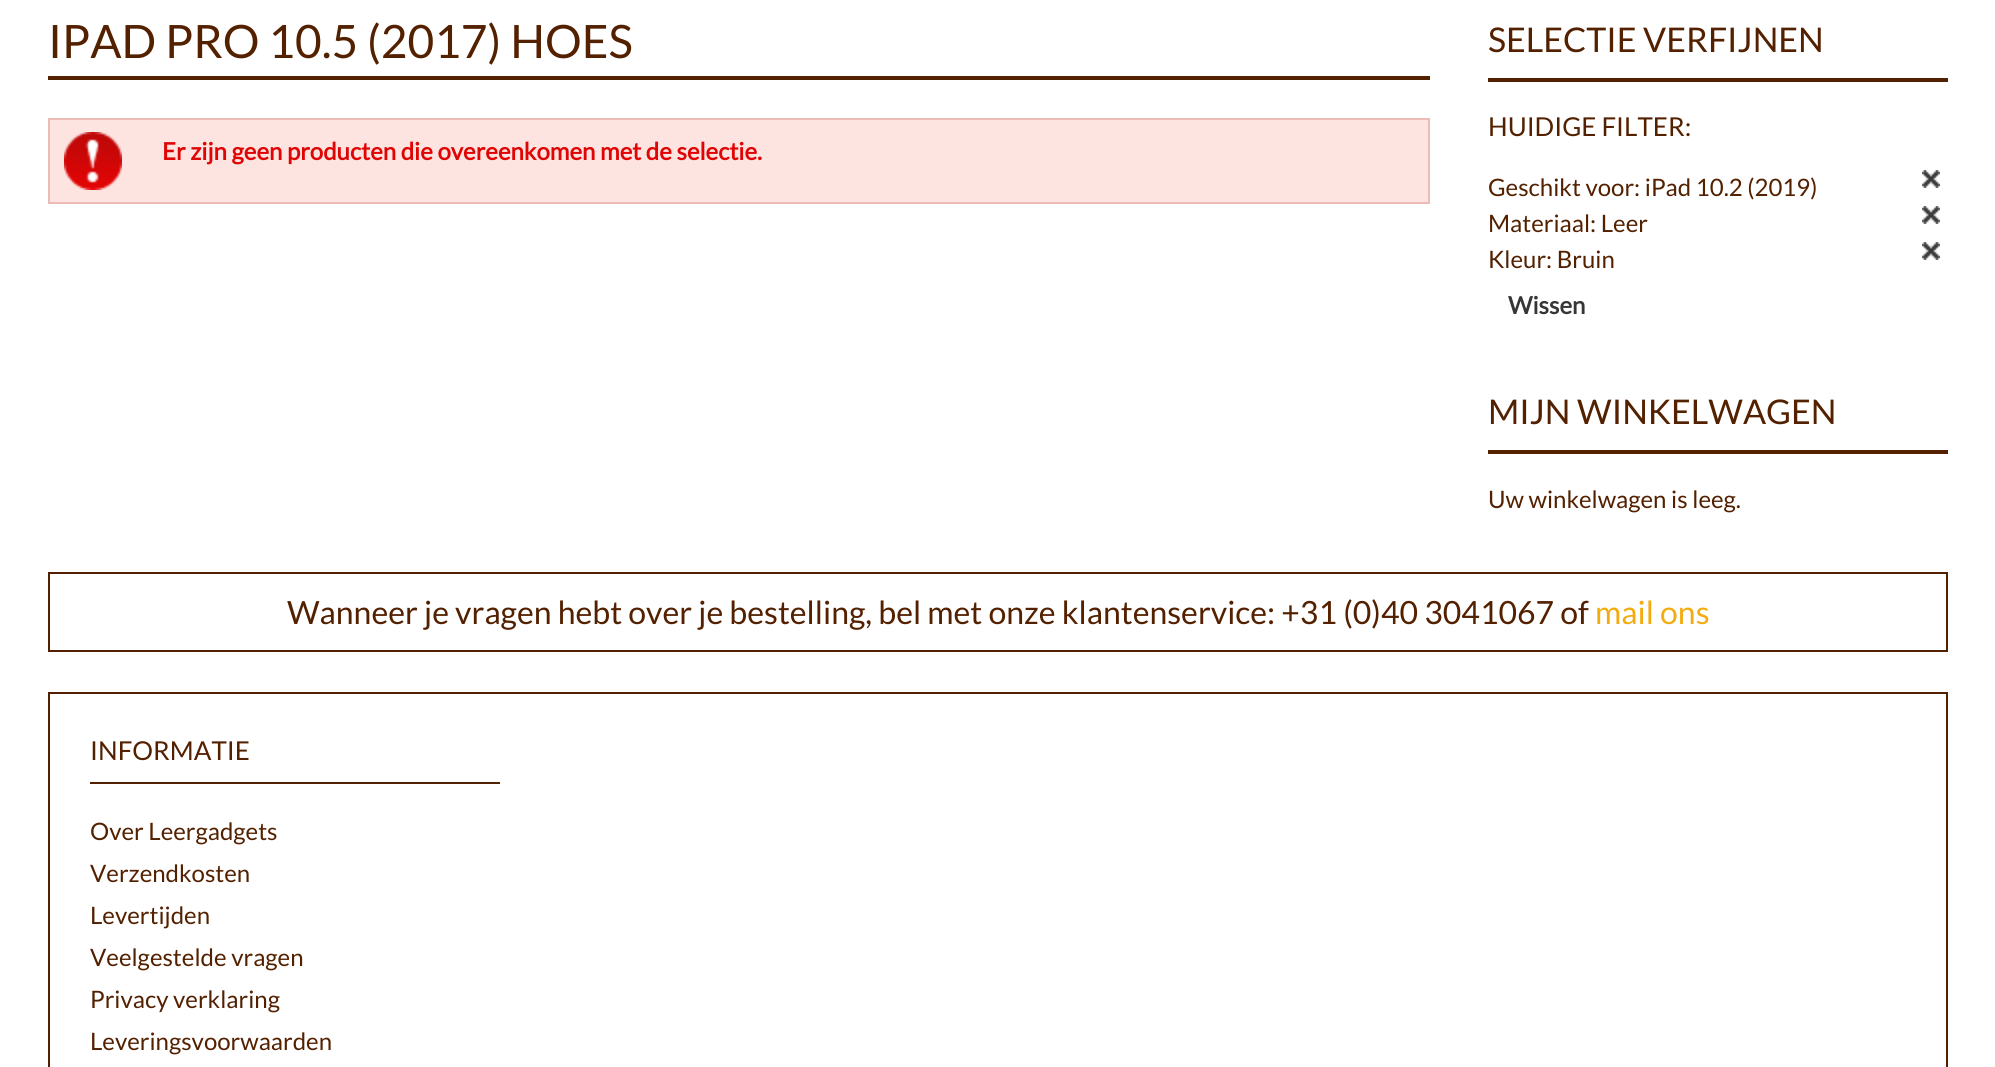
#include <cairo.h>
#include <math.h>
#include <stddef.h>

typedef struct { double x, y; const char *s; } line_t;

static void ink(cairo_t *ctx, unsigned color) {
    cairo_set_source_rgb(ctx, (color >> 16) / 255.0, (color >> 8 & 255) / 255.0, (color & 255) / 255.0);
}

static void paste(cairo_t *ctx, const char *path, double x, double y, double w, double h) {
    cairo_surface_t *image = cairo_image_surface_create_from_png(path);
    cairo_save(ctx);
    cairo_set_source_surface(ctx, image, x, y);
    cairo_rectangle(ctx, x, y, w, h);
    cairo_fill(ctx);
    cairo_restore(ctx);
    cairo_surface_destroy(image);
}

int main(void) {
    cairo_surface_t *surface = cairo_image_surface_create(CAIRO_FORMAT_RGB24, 1995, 1067);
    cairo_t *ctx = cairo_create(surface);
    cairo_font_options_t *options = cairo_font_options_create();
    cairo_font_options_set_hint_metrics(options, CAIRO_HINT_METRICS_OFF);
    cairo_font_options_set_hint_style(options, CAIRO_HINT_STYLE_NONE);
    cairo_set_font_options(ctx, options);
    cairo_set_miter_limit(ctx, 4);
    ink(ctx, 0xFFFFFF);
    cairo_paint(ctx);
    ink(ctx, 0x532000);
    cairo_rectangle(ctx, 48, 76, 1382, 4);
    cairo_fill(ctx);
    cairo_select_font_face(ctx, "Lato", CAIRO_FONT_SLANT_NORMAL, CAIRO_FONT_WEIGHT_NORMAL);
    cairo_set_font_size(ctx, 46);
    cairo_move_to(ctx, 48, 58);
    cairo_show_text(ctx, "IPAD PRO 10.5 (2017) HOES");
    ink(ctx, 0xFDE4E1);
    cairo_rectangle(ctx, 50, 120, 1378, 82);
    cairo_fill(ctx);
    paste(ctx, "media/1.png", 64, 132, 58, 58);
    cairo_rectangle(ctx, 49, 119, 1380, 84);
    ink(ctx, 0xEBBCB5);
    cairo_stroke(ctx);
    cairo_select_font_face(ctx, "Lato", CAIRO_FONT_SLANT_NORMAL, CAIRO_FONT_WEIGHT_BOLD);
    cairo_set_font_size(ctx, 24);
    ink(ctx, 0xDF0505);
    cairo_move_to(ctx, 162, 160);
    cairo_show_text(ctx, "Er zijn geen producten die overeenkomen met de selectie.");
    ink(ctx, 0x532000);
    cairo_rectangle(ctx, 1488, 78, 460, 4);
    cairo_fill(ctx);
    cairo_select_font_face(ctx, "Lato", CAIRO_FONT_SLANT_NORMAL, CAIRO_FONT_WEIGHT_NORMAL);
    cairo_set_font_size(ctx, 34);
    cairo_move_to(ctx, 1488, 52);
    cairo_show_text(ctx, "SELECTIE VERFIJNEN");
    cairo_set_font_size(ctx, 26);
    cairo_move_to(ctx, 1488, 136);
    cairo_show_text(ctx, "HUIDIGE FILTER:");
    cairo_set_font_size(ctx, 24);
    cairo_move_to(ctx, 1488, 196);
    cairo_show_text(ctx, "Geschikt voor: iPad 10.2 (2019)");
    paste(ctx, "media/2.png", 1922, 170, 18, 18);
    cairo_move_to(ctx, 1488, 232);
    cairo_show_text(ctx, "Materiaal: Leer");
    paste(ctx, "media/2.png", 1922, 206, 18, 18);
    cairo_move_to(ctx, 1488, 268);
    cairo_show_text(ctx, "Kleur: Bruin");
    paste(ctx, "media/2.png", 1922, 242, 18, 18);
    cairo_select_font_face(ctx, "Lato", CAIRO_FONT_SLANT_NORMAL, CAIRO_FONT_WEIGHT_BOLD);
    ink(ctx, 0x363636);
    cairo_move_to(ctx, 1508, 314);
    cairo_show_text(ctx, "Wissen");
    ink(ctx, 0x532000);
    cairo_rectangle(ctx, 1488, 450, 460, 4);
    cairo_fill(ctx);
    cairo_select_font_face(ctx, "Lato", CAIRO_FONT_SLANT_NORMAL, CAIRO_FONT_WEIGHT_NORMAL);
    cairo_set_font_size(ctx, 34);
    cairo_move_to(ctx, 1488, 424);
    cairo_show_text(ctx, "MIJN WINKELWAGEN");
    cairo_set_font_size(ctx, 24);
    cairo_move_to(ctx, 1488, 508);
    cairo_show_text(ctx, "Uw winkelwagen is leeg.");
    cairo_rectangle(ctx, 49, 573, 1898, 78);
    cairo_stroke(ctx);
    cairo_set_font_size(ctx, 32);
    cairo_move_to(ctx, 287, 624);
    cairo_show_text(ctx, "Wanneer je vragen hebt over je bestelling, bel met onze klantenservice: +31 (0)40 3041067 of");
    ink(ctx, 0xF3AC10);
    cairo_move_to(ctx, 1595, 624);
    cairo_show_text(ctx, "mail ons");
    cairo_rectangle(ctx, 49, 693, 1898, 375);
    ink(ctx, 0x532000);
    cairo_stroke(ctx);
    cairo_rectangle(ctx, 90, 782, 410, 2);
    cairo_fill(ctx);
    cairo_set_font_size(ctx, 26);
    cairo_move_to(ctx, 90, 760);
    cairo_show_text(ctx, "INFORMATIE");
    cairo_set_font_size(ctx, 24);
    {
        static const line_t items[] = {
            {90, 840, "Over Leergadgets"},
            {90, 882, "Verzendkosten"},
            {90, 924, "Levertijden"},
            {90, 966, "Veelgestelde vragen"},
            {90, 1008, "Privacy verklaring"},
            {90, 1050, "Leveringsvoorwaarden"},
        };
        for (size_t i = 0; i < sizeof items / sizeof *items; i++) {
            cairo_move_to(ctx, items[i].x, items[i].y);
            cairo_show_text(ctx, items[i].s);
        }
    }
    cairo_surface_write_to_png(surface, "image.png");
    cairo_font_options_destroy(options);
    cairo_destroy(ctx);
    cairo_surface_destroy(surface);
    return 0;
}
